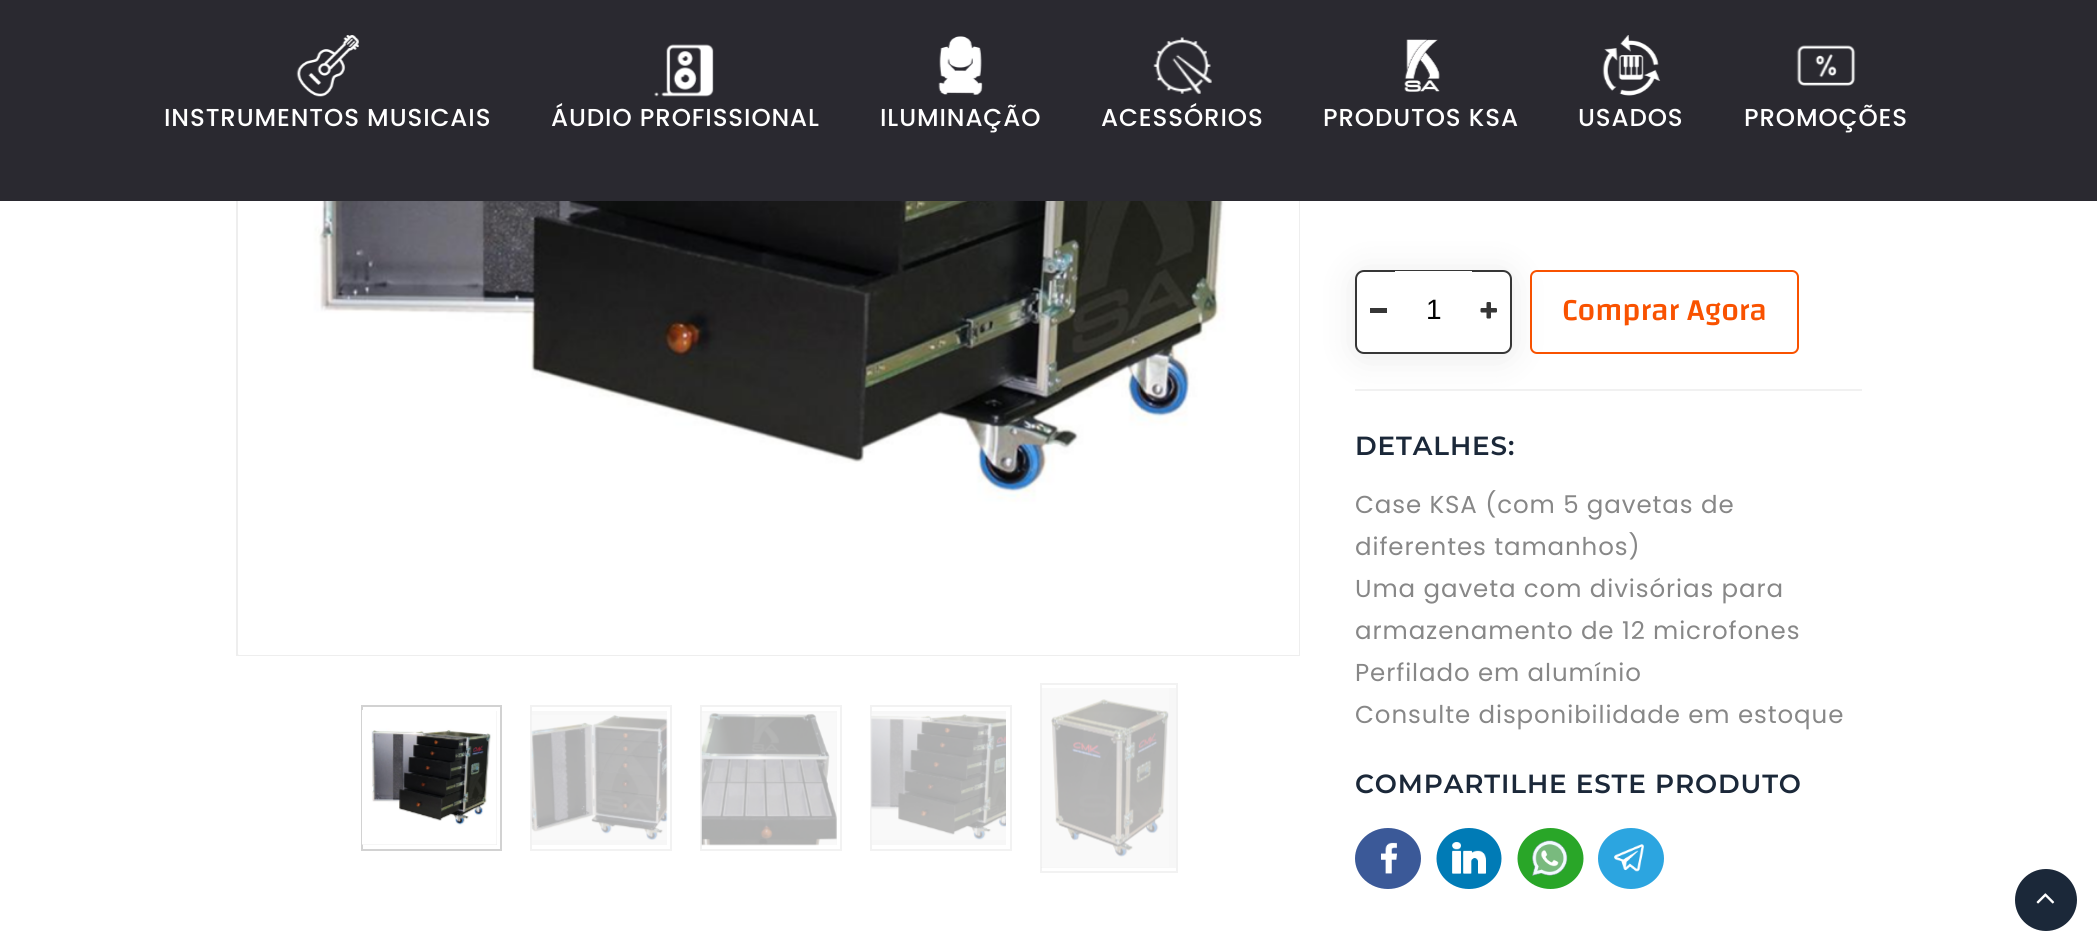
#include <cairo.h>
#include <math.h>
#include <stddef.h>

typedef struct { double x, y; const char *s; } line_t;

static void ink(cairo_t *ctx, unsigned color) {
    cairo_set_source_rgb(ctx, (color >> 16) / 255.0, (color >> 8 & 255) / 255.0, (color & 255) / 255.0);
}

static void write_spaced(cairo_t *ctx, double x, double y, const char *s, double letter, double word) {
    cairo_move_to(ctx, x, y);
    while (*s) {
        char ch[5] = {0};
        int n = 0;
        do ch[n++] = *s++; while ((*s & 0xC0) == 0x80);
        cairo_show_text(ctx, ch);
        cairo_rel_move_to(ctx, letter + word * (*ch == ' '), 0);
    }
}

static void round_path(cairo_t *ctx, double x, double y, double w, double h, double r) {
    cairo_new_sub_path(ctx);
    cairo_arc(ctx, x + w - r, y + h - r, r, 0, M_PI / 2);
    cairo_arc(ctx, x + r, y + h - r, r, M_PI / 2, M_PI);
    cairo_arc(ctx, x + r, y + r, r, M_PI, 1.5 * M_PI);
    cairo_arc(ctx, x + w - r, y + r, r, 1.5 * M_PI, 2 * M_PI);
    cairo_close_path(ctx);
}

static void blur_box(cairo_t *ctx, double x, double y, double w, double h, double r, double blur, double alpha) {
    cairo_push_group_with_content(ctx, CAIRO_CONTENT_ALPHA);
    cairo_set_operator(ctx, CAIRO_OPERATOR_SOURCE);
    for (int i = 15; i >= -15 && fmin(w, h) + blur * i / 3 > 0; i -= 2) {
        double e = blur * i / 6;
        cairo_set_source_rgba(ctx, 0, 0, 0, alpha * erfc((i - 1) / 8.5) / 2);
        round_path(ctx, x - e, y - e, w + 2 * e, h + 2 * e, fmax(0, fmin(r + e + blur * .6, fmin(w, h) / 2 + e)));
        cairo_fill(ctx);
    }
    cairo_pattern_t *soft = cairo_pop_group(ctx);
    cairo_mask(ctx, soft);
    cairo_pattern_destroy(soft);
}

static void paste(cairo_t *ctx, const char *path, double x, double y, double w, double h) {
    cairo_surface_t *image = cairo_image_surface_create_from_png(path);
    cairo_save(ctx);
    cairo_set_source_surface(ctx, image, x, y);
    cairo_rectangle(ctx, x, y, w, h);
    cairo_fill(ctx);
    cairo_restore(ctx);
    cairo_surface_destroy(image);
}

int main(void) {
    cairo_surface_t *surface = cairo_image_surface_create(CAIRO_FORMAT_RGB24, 2097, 952);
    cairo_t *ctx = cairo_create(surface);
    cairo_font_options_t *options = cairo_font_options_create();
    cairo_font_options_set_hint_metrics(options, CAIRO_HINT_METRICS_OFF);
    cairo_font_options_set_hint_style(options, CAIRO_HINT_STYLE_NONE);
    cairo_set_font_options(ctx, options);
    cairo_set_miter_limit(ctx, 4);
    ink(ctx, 0xFFFFFF);
    cairo_paint(ctx);
    cairo_rectangle(ctx, 237, -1, 1062, 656);
    ink(ctx, 0xEEEEEE);
    cairo_stroke(ctx);
    ink(ctx, 0x2A2930);
    cairo_rectangle(ctx, 0, 0, 2097, 201);
    cairo_fill(ctx);
    paste(ctx, "media/1.png", 296, 35, 63, 62);
    cairo_select_font_face(ctx, "Poppins Medium", CAIRO_FONT_SLANT_NORMAL, CAIRO_FONT_WEIGHT_NORMAL);
    cairo_set_font_size(ctx, 24.5);
    ink(ctx, 0xFFFFFF);
    write_spaced(ctx, 164, 126, "INSTRUMENTOS MUSICAIS", 0.9, 0);
    paste(ctx, "media/2.png", 654, 44, 60, 53);
    write_spaced(ctx, 551, 126, "ÁUDIO PROFISSIONAL", 0.9, 0);
    paste(ctx, "media/3.png", 938, 36, 45, 59);
    write_spaced(ctx, 880, 126, "ILUMINAÇÃO", 0.9, 0);
    paste(ctx, "media/4.png", 1153, 37, 59, 57);
    write_spaced(ctx, 1101, 126, "ACESSÓRIOS", 0.9, 0);
    paste(ctx, "media/5.png", 1404, 39, 36, 53);
    write_spaced(ctx, 1323, 126, "PRODUTOS KSA", 0.9, 0);
    paste(ctx, "media/6.png", 1602, 35, 59, 61);
    write_spaced(ctx, 1578, 126, "USADOS", 0.9, 0);
    paste(ctx, "media/7.png", 1796, 45, 60, 41);
    write_spaced(ctx, 1744, 126, "PROMOÇÕES", 0.9, 0);
    paste(ctx, "media/8.png", 238, 201, 1061, 454);
    cairo_rectangle(ctx, 362, 706, 139, 144);
    ink(ctx, 0xD2D2D2);
    cairo_stroke(ctx);
    cairo_set_source_rgba(ctx, 0.498, 0.498, 0.498, 0.2);
    cairo_rectangle(ctx, 362, 711, 135, 134);
    cairo_fill(ctx);
    paste(ctx, "media/9.png", 362, 710, 135, 135);
    cairo_rectangle(ctx, 531, 706, 140, 144);
    ink(ctx, 0xF2F2F2);
    cairo_stroke(ctx);
    ink(ctx, 0xF7F7F7);
    cairo_rectangle(ctx, 532, 711, 135, 134);
    cairo_fill(ctx);
    paste(ctx, "media/10.png", 531, 715, 137, 125);
    cairo_rectangle(ctx, 701, 706, 140, 144);
    ink(ctx, 0xF2F2F2);
    cairo_stroke(ctx);
    ink(ctx, 0xF7F7F7);
    cairo_rectangle(ctx, 702, 711, 135, 134);
    cairo_fill(ctx);
    paste(ctx, "media/11.png", 701, 713, 136, 133);
    cairo_rectangle(ctx, 871, 706, 140, 144);
    ink(ctx, 0xF2F2F2);
    cairo_stroke(ctx);
    ink(ctx, 0xF7F7F7);
    cairo_rectangle(ctx, 872, 711, 134, 134);
    cairo_fill(ctx);
    paste(ctx, "media/12.png", 871, 714, 135, 126);
    cairo_rectangle(ctx, 1041, 684, 136, 188);
    ink(ctx, 0xF2F2F2);
    cairo_stroke(ctx);
    cairo_set_source_rgba(ctx, 0.851, 0.851, 0.851, 0.2);
    cairo_rectangle(ctx, 1041, 688, 135, 180);
    cairo_fill(ctx);
    paste(ctx, "media/13.png", 1041, 688, 128, 179);
    round_path(ctx, 1531, 271, 267, 82, 6);
    ink(ctx, 0xF95200);
    cairo_stroke(ctx);
    ink(ctx, 0xF1F1F1);
    cairo_rectangle(ctx, 1355, 389, 507, 2);
    cairo_fill(ctx);
    ink(ctx, 0x000000);
    blur_box(ctx, 1355, 273, 157, 84, 9, 17.5, 0.09);
    ink(ctx, 0xFFFFFF);
    round_path(ctx, 1356, 271, 155, 82, 8);
    cairo_fill_preserve(ctx);
    ink(ctx, 0x363636);
    cairo_stroke(ctx);
    cairo_rectangle(ctx, 1370, 308, 17, 5);
    cairo_fill(ctx);
    ink(ctx, 0xFFFFFF);
    cairo_rectangle(ctx, 1395, 271, 77, 1);
    cairo_fill(ctx);
    cairo_select_font_face(ctx, "Liberation Sans", CAIRO_FONT_SLANT_NORMAL, CAIRO_FONT_WEIGHT_NORMAL);
    cairo_set_font_size(ctx, 28);
    ink(ctx, 0x000000);
    cairo_move_to(ctx, 1426, 319);
    cairo_show_text(ctx, "1");
    paste(ctx, "media/14.png", 1480, 302, 17, 17);
    cairo_select_font_face(ctx, "Changa Medium", CAIRO_FONT_SLANT_NORMAL, CAIRO_FONT_WEIGHT_NORMAL);
    cairo_set_font_size(ctx, 31.5);
    ink(ctx, 0xF95200);
    cairo_move_to(ctx, 1562, 320);
    cairo_show_text(ctx, "Comprar Agora");
    cairo_select_font_face(ctx, "Montserrat SemiBold", CAIRO_FONT_SLANT_NORMAL, CAIRO_FONT_WEIGHT_NORMAL);
    cairo_set_font_size(ctx, 26.25);
    ink(ctx, 0x1B2839);
    write_spaced(ctx, 1355, 455, "DETALHES:", 0.9, 0);
    cairo_select_font_face(ctx, "Poppins", CAIRO_FONT_SLANT_NORMAL, CAIRO_FONT_WEIGHT_NORMAL);
    cairo_set_font_size(ctx, 24.5);
    ink(ctx, 0x878787);
    {
        static const line_t items[] = {
            {1355, 513, "Case KSA (com 5 gavetas de"},
            {1355, 555, "diferentes tamanhos)"},
            {1355, 597, "Uma gaveta com divisórias para"},
            {1355, 639, "armazenamento de 12 microfones"},
            {1355, 681, "Perfilado em alumínio"},
            {1355, 723, "Consulte disponibilidade em estoque"},
        };
        for (size_t i = 0; i < sizeof items / sizeof *items; i++) {
            write_spaced(ctx, items[i].x, items[i].y, items[i].s, 0.9, 0);
        }
    }
    cairo_select_font_face(ctx, "Montserrat SemiBold", CAIRO_FONT_SLANT_NORMAL, CAIRO_FONT_WEIGHT_NORMAL);
    cairo_set_font_size(ctx, 26.25);
    ink(ctx, 0x1B2839);
    write_spaced(ctx, 1355, 793, "COMPARTILHE ESTE PRODUTO", 0.9, 0);
    ink(ctx, 0x3B5998);
    cairo_new_path(ctx);
    cairo_move_to(ctx, 1388, 828);
    cairo_curve_to(ctx, 1406, 828, 1421, 841.5, 1421, 858.5);
    cairo_curve_to(ctx, 1421, 875.5, 1406, 889, 1388, 889);
    cairo_curve_to(ctx, 1370, 889, 1355, 875.5, 1355, 858.5);
    cairo_curve_to(ctx, 1355, 841.5, 1370, 828, 1388, 828);
    cairo_close_path(ctx);
    cairo_fill(ctx);
    paste(ctx, "media/15.png", 1381, 842, 16, 32);
    ink(ctx, 0x007BB6);
    cairo_new_path(ctx);
    cairo_move_to(ctx, 1469, 828);
    cairo_curve_to(ctx, 1487, 828, 1501.5, 841.5, 1501.5, 858.5);
    cairo_curve_to(ctx, 1501.5, 875.5, 1487, 889, 1469, 889);
    cairo_curve_to(ctx, 1451, 889, 1436.5, 875.5, 1436.5, 858.5);
    cairo_curve_to(ctx, 1436.5, 841.5, 1451, 828, 1469, 828);
    cairo_close_path(ctx);
    cairo_fill(ctx);
    paste(ctx, "media/16.png", 1452, 842, 34, 32);
    ink(ctx, 0x29A628);
    cairo_new_path(ctx);
    cairo_move_to(ctx, 1550.5, 828);
    cairo_curve_to(ctx, 1568.5, 828, 1583.5, 841.5, 1583.5, 858.5);
    cairo_curve_to(ctx, 1583.5, 875.5, 1568.5, 889, 1550.5, 889);
    cairo_curve_to(ctx, 1532.5, 889, 1517.5, 875.5, 1517.5, 858.5);
    cairo_curve_to(ctx, 1517.5, 841.5, 1532.5, 828, 1550.5, 828);
    cairo_close_path(ctx);
    cairo_fill(ctx);
    paste(ctx, "media/17.png", 1532, 840, 36, 36);
    ink(ctx, 0x2CA5E0);
    cairo_new_path(ctx);
    cairo_move_to(ctx, 1631, 828);
    cairo_curve_to(ctx, 1649, 828, 1664, 841.5, 1664, 858.5);
    cairo_curve_to(ctx, 1664, 875.5, 1649, 889, 1631, 889);
    cairo_curve_to(ctx, 1613, 889, 1598, 875.5, 1598, 858.5);
    cairo_curve_to(ctx, 1598, 841.5, 1613, 828, 1631, 828);
    cairo_close_path(ctx);
    cairo_fill(ctx);
    paste(ctx, "media/18.png", 1614, 844, 30, 28);
    ink(ctx, 0x1B2839);
    cairo_arc(ctx, 2046, 900, 33, 0, 2 * M_PI);
    cairo_fill_preserve(ctx);
    ink(ctx, 0xFFFFFF);
    cairo_set_line_width(ctx, 4);
    cairo_stroke(ctx);
    paste(ctx, "media/19.png", 2036, 893, 19, 11);
    cairo_surface_write_to_png(surface, "image.png");
    cairo_font_options_destroy(options);
    cairo_destroy(ctx);
    cairo_surface_destroy(surface);
    return 0;
}
